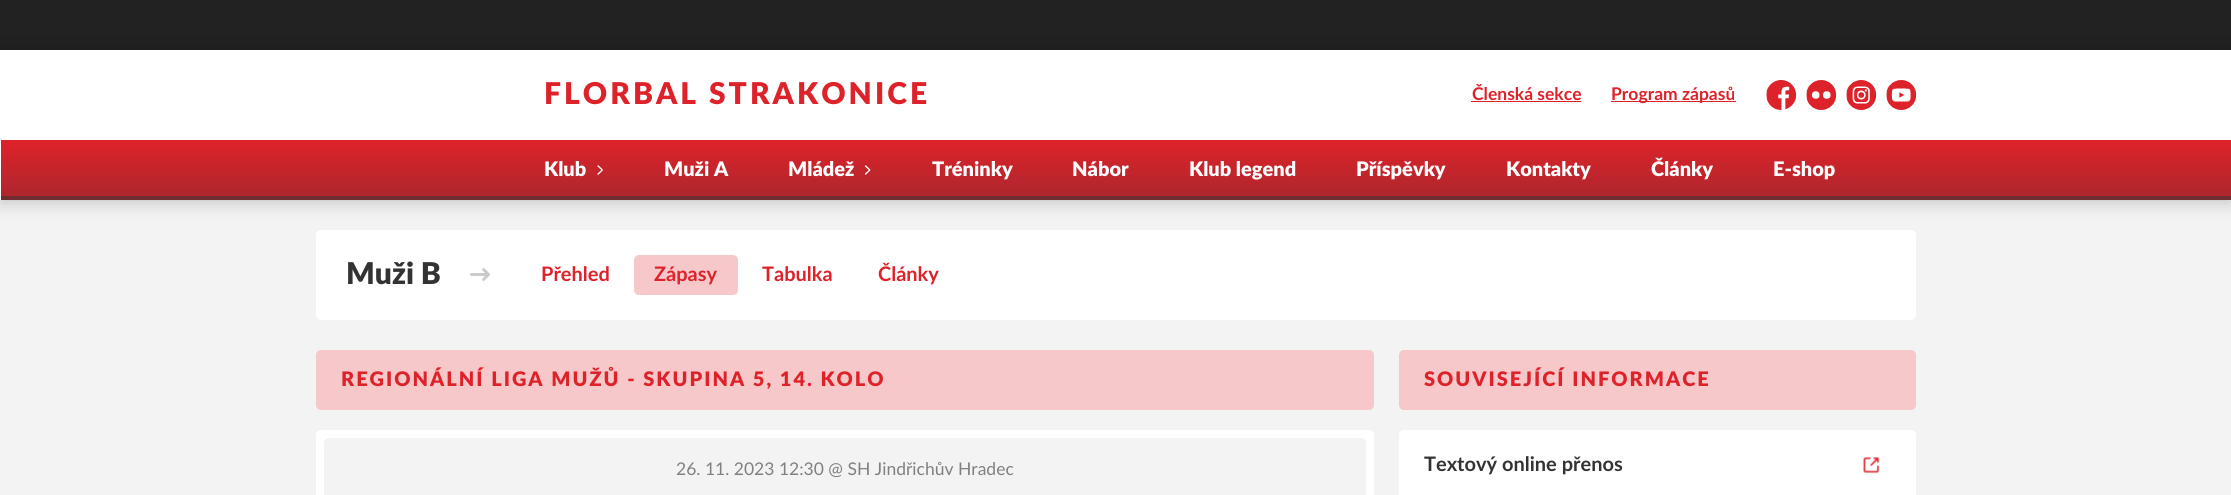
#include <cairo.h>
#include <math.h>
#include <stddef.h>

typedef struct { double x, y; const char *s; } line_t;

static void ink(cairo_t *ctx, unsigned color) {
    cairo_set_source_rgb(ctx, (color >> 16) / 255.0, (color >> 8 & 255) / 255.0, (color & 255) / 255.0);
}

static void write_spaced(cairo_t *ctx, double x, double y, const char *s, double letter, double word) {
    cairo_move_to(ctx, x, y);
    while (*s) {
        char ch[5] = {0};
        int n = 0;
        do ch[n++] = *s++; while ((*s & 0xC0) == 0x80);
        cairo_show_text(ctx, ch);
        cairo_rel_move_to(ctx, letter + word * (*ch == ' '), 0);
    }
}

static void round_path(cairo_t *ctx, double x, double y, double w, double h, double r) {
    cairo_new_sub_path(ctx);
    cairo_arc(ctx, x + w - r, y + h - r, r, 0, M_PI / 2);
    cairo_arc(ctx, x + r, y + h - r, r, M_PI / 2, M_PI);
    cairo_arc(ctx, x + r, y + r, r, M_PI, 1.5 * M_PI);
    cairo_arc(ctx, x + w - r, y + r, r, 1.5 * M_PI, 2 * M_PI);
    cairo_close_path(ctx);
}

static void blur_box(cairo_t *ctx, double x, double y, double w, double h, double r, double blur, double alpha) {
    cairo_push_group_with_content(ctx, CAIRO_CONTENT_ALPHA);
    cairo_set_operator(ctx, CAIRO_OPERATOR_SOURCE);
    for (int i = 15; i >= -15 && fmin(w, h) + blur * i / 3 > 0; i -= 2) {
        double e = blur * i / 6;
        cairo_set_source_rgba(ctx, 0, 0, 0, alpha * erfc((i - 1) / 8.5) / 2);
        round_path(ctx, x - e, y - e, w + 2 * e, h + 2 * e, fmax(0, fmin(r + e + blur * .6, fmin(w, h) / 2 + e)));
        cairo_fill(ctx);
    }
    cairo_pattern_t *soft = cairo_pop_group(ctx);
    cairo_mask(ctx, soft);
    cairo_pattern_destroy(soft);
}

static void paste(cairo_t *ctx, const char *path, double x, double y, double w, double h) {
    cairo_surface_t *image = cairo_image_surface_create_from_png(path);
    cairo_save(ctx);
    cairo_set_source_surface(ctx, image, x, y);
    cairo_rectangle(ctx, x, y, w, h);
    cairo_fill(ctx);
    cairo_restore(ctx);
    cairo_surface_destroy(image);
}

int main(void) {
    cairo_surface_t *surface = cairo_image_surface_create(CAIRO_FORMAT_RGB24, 2231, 495);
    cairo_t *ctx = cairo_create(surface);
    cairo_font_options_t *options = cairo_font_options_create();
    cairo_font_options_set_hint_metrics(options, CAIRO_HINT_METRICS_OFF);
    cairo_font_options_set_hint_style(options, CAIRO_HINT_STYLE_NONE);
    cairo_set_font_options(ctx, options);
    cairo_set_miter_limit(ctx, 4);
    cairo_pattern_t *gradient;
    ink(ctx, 0xF3F3F3);
    cairo_paint(ctx);
    ink(ctx, 0x222222);
    cairo_rectangle(ctx, 0, 0, 2231, 50);
    cairo_fill(ctx);
    ink(ctx, 0xFFFFFF);
    round_path(ctx, 316, 230, 1600, 90, 5);
    cairo_fill(ctx);
    ink(ctx, 0x000000);
    blur_box(ctx, 0, 50, 2231, 150, 0, 10, 0.25);
    ink(ctx, 0xFFFFFF);
    cairo_rectangle(ctx, 0, 50, 2231, 150);
    cairo_fill(ctx);
    cairo_select_font_face(ctx, "Lato Black", CAIRO_FONT_SLANT_NORMAL, CAIRO_FONT_WEIGHT_NORMAL);
    cairo_set_font_size(ctx, 30);
    ink(ctx, 0xDE222A);
    write_spaced(ctx, 544, 104, "FLORBAL STRAKONICE", 3, 0);
    cairo_select_font_face(ctx, "Lato", CAIRO_FONT_SLANT_NORMAL, CAIRO_FONT_WEIGHT_BOLD);
    cairo_set_font_size(ctx, 17.5);
    cairo_move_to(ctx, 1472, 100);
    cairo_show_text(ctx, "Členská sekce");
    cairo_rectangle(ctx, 1471, 101, 110, 1);
    cairo_fill(ctx);
    cairo_rectangle(ctx, 1611, 101, 125, 1);
    cairo_fill(ctx);
    cairo_move_to(ctx, 1611, 100);
    cairo_show_text(ctx, "Program zápasů");
    paste(ctx, "media/1.png", 1766, 80, 30, 30);
    paste(ctx, "media/2.png", 1806, 80, 30, 30);
    paste(ctx, "media/3.png", 1846, 80, 30, 30);
    paste(ctx, "media/4.png", 1886, 80, 30, 30);
    gradient = cairo_pattern_create_linear(1116, 140, 1116, 200);
    cairo_pattern_add_color_stop_rgba(gradient, 0, 0.871, 0.133, 0.165, 1);
    cairo_pattern_add_color_stop_rgba(gradient, 1, 0.671, 0.153, 0.176, 1);
    cairo_set_source(ctx, gradient);
    cairo_pattern_destroy(gradient);
    cairo_rectangle(ctx, 1, 140, 2230, 56);
    cairo_fill(ctx);
    cairo_select_font_face(ctx, "Lato Black", CAIRO_FONT_SLANT_NORMAL, CAIRO_FONT_WEIGHT_NORMAL);
    cairo_set_font_size(ctx, 20);
    ink(ctx, 0xFFFFFF);
    cairo_move_to(ctx, 544, 176);
    cairo_show_text(ctx, "Klub");
    paste(ctx, "media/5.png", 597, 165, 6, 10);
    cairo_move_to(ctx, 664, 176);
    cairo_show_text(ctx, "Muži A");
    cairo_move_to(ctx, 788, 176);
    cairo_show_text(ctx, "Mládež");
    paste(ctx, "media/6.png", 864, 165, 7, 10);
    {
        static const line_t items[] = {
            {932, 176, "Tréninky"},
            {1072, 176, "Nábor"},
            {1189, 176, "Klub legend"},
            {1356, 176, "Příspěvky"},
            {1506, 176, "Kontakty"},
            {1651, 176, "Články"},
            {1773, 176, "E-shop"},
        };
        for (size_t i = 0; i < sizeof items / sizeof *items; i++) {
            cairo_move_to(ctx, items[i].x, items[i].y);
            cairo_show_text(ctx, items[i].s);
        }
    }
    gradient = cairo_pattern_create_linear(1116, 140, 1116, 200);
    cairo_pattern_add_color_stop_rgba(gradient, 0, 0.537, 0.169, 0.184, 1);
    cairo_pattern_add_color_stop_rgba(gradient, 1, 0.435, 0.176, 0.188, 1);
    cairo_set_source(ctx, gradient);
    cairo_pattern_destroy(gradient);
    cairo_rectangle(ctx, 1, 196, 2230, 4);
    cairo_fill(ctx);
    cairo_set_font_size(ctx, 30);
    ink(ctx, 0x333333);
    cairo_move_to(ctx, 346, 284);
    cairo_show_text(ctx, "Muži B");
    paste(ctx, "media/7.png", 470, 268, 20, 13);
    cairo_select_font_face(ctx, "Lato", CAIRO_FONT_SLANT_NORMAL, CAIRO_FONT_WEIGHT_BOLD);
    cairo_set_font_size(ctx, 20);
    ink(ctx, 0xDE222A);
    cairo_move_to(ctx, 541, 281);
    cairo_show_text(ctx, "Přehled");
    ink(ctx, 0xF7C8CA);
    round_path(ctx, 634, 255, 104, 40, 5);
    cairo_fill(ctx);
    ink(ctx, 0xDE222A);
    {
        static const line_t items[] = {
            {654, 281, "Zápasy"},
            {762, 281, "Tabulka"},
            {878, 281, "Články"},
        };
        for (size_t i = 0; i < sizeof items / sizeof *items; i++) {
            cairo_move_to(ctx, items[i].x, items[i].y);
            cairo_show_text(ctx, items[i].s);
        }
    }
    ink(ctx, 0xF7C8CA);
    round_path(ctx, 316, 350, 1058, 60, 5);
    cairo_fill(ctx);
    cairo_select_font_face(ctx, "Lato Black", CAIRO_FONT_SLANT_NORMAL, CAIRO_FONT_WEIGHT_NORMAL);
    ink(ctx, 0xDE222A);
    write_spaced(ctx, 341, 386, "REGIONÁLNÍ LIGA MUŽŮ - SKUPINA 5, 14. KOLO", 2, 0);
    ink(ctx, 0xFFFFFF);
    round_path(ctx, 316, 430, 1058, 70, 5);
    cairo_fill(ctx);
    ink(ctx, 0xF3F3F3);
    round_path(ctx, 324, 438, 1042, 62, 5);
    cairo_fill(ctx);
    cairo_select_font_face(ctx, "Lato", CAIRO_FONT_SLANT_NORMAL, CAIRO_FONT_WEIGHT_NORMAL);
    cairo_set_font_size(ctx, 17.5);
    ink(ctx, 0x808080);
    cairo_move_to(ctx, 676, 475);
    cairo_show_text(ctx, "26. 11. 2023 12:30 @ SH Jindřichův Hradec");
    ink(ctx, 0xF7C8CA);
    round_path(ctx, 1399, 350, 517, 60, 5);
    cairo_fill(ctx);
    cairo_select_font_face(ctx, "Lato Black", CAIRO_FONT_SLANT_NORMAL, CAIRO_FONT_WEIGHT_NORMAL);
    cairo_set_font_size(ctx, 20);
    ink(ctx, 0xDE222A);
    write_spaced(ctx, 1424, 386, "SOUVISEJÍCÍ INFORMACE", 2, 0);
    ink(ctx, 0xFFFFFF);
    round_path(ctx, 1399, 430, 517, 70, 5);
    cairo_fill(ctx);
    cairo_select_font_face(ctx, "Lato", CAIRO_FONT_SLANT_NORMAL, CAIRO_FONT_WEIGHT_BOLD);
    ink(ctx, 0x333333);
    cairo_move_to(ctx, 1424, 471);
    cairo_show_text(ctx, "Textový online přenos");
    paste(ctx, "media/8.png", 1863, 457, 17, 16);
    cairo_surface_write_to_png(surface, "image.png");
    cairo_font_options_destroy(options);
    cairo_destroy(ctx);
    cairo_surface_destroy(surface);
    return 0;
}
